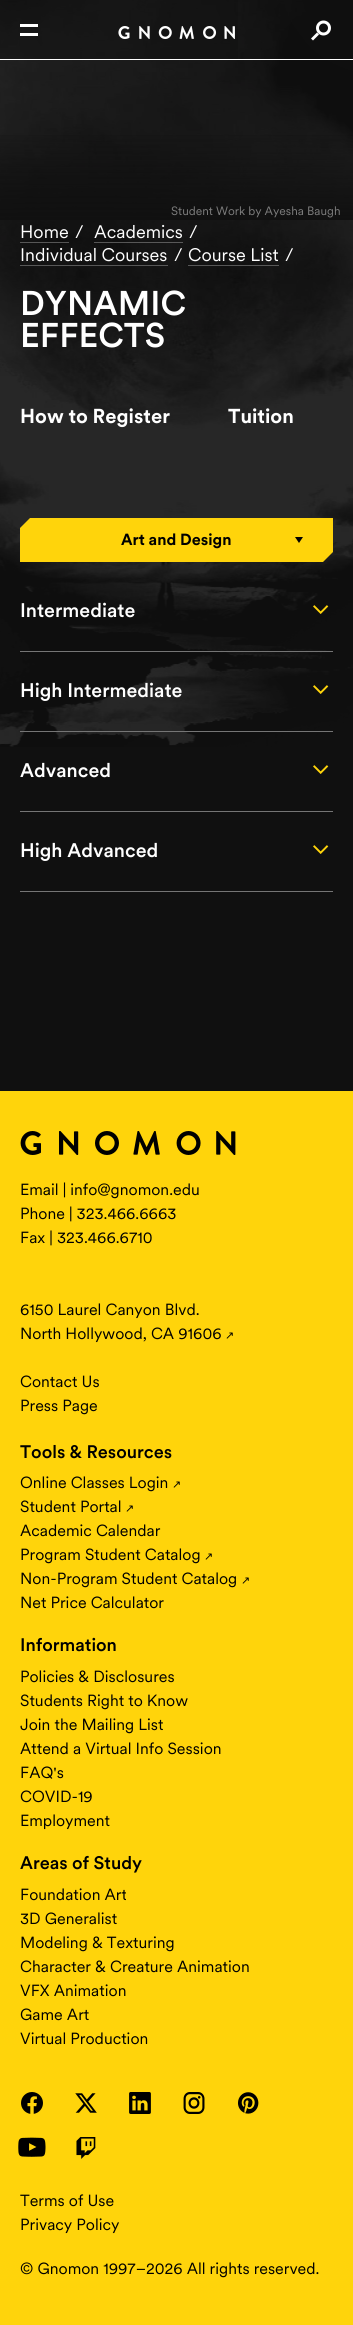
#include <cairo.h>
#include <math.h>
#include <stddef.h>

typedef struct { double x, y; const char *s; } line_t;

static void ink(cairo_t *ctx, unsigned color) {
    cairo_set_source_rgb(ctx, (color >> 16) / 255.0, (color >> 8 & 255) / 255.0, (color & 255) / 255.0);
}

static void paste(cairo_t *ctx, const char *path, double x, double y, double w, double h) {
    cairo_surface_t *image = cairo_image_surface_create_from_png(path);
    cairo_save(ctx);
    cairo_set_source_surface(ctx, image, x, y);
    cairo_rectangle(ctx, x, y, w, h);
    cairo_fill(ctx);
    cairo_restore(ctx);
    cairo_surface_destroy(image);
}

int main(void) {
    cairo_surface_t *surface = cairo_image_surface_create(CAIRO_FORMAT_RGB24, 353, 2325);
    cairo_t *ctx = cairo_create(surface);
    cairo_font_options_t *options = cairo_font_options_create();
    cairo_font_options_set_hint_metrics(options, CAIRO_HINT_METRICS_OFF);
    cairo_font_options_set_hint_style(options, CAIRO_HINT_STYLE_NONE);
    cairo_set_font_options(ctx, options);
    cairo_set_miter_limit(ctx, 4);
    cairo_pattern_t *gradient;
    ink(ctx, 0x101010);
    cairo_paint(ctx);
    paste(ctx, "media/2.png", 0, 0, 353, 747);
    cairo_set_source_rgba(ctx, 0.063, 0.063, 0.063, 0.4);
    cairo_rectangle(ctx, 0, 0, 238, 59);
    cairo_fill(ctx);
    ink(ctx, 0xFFFFFF);
    cairo_rectangle(ctx, 0, 59, 353, 1);
    cairo_fill(ctx);
    cairo_rectangle(ctx, 20, 24, 18, 3);
    cairo_fill(ctx);
    cairo_rectangle(ctx, 20, 33, 18, 3);
    cairo_fill(ctx);
    paste(ctx, "media/1.png", 118, 26, 117, 13);
    cairo_arc(ctx, 323.5, 28, 6, 0, 2 * M_PI);
    cairo_set_line_width(ctx, 3);
    cairo_stroke(ctx);
    cairo_set_fill_rule(ctx, CAIRO_FILL_RULE_EVEN_ODD);
    cairo_new_path(ctx);
    cairo_move_to(ctx, 317, 32.5);
    cairo_line_to(ctx, 319, 34.5);
    cairo_line_to(ctx, 313, 40.5);
    cairo_line_to(ctx, 311, 38.5);
    cairo_close_path(ctx);
    cairo_fill(ctx);
    gradient = cairo_pattern_create_linear(177, 120, 177, 220);
    cairo_pattern_add_color_stop_rgba(gradient, 0, 0.063, 0.063, 0.063, 0);
    cairo_pattern_add_color_stop_rgba(gradient, 1, 0.063, 0.063, 0.063, 1);
    cairo_set_source(ctx, gradient);
    cairo_pattern_destroy(gradient);
    cairo_rectangle(ctx, 0, 135, 353, 85);
    cairo_fill(ctx);
    cairo_select_font_face(ctx, "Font", CAIRO_FONT_SLANT_NORMAL, CAIRO_FONT_WEIGHT_NORMAL);
    cairo_set_font_size(ctx, 12);
    ink(ctx, 0x7D7D7D);
    cairo_move_to(ctx, 171, 215);
    cairo_show_text(ctx, "Student Work by Ayesha Baugh");
    cairo_set_font_size(ctx, 18);
    ink(ctx, 0xFFFFFF);
    cairo_move_to(ctx, 20, 238);
    cairo_show_text(ctx, "Home");
    cairo_set_source_rgba(ctx, 1, 1, 1, 0.29);
    cairo_rectangle(ctx, 20, 242, 49, 1);
    cairo_fill(ctx);
    ink(ctx, 0xFFFFFF);
    cairo_move_to(ctx, 75, 238);
    cairo_show_text(ctx, "/");
    cairo_move_to(ctx, 94, 238);
    cairo_show_text(ctx, "Academics");
    cairo_set_source_rgba(ctx, 1, 1, 1, 0.29);
    cairo_rectangle(ctx, 94, 242, 89, 1);
    cairo_fill(ctx);
    ink(ctx, 0xFFFFFF);
    cairo_move_to(ctx, 189, 238);
    cairo_show_text(ctx, "/");
    cairo_move_to(ctx, 20, 261);
    cairo_show_text(ctx, "Individual Courses");
    cairo_set_source_rgba(ctx, 1, 1, 1, 0.29);
    cairo_rectangle(ctx, 20, 265, 148, 1);
    cairo_fill(ctx);
    ink(ctx, 0xFFFFFF);
    cairo_move_to(ctx, 174, 261);
    cairo_show_text(ctx, "/");
    cairo_move_to(ctx, 188, 261);
    cairo_show_text(ctx, "Course List");
    cairo_set_source_rgba(ctx, 1, 1, 1, 0.29);
    cairo_rectangle(ctx, 188, 265, 91, 1);
    cairo_fill(ctx);
    ink(ctx, 0xFFFFFF);
    cairo_move_to(ctx, 285, 261);
    cairo_show_text(ctx, "/");
    cairo_select_font_face(ctx, "Font Medium", CAIRO_FONT_SLANT_NORMAL, CAIRO_FONT_WEIGHT_NORMAL);
    cairo_set_font_size(ctx, 34);
    cairo_move_to(ctx, 20, 315);
    cairo_show_text(ctx, "DYNAMIC");
    cairo_move_to(ctx, 20, 347);
    cairo_show_text(ctx, "EFFECTS");
    cairo_select_font_face(ctx, "Font", CAIRO_FONT_SLANT_NORMAL, CAIRO_FONT_WEIGHT_BOLD);
    cairo_set_font_size(ctx, 20);
    cairo_move_to(ctx, 20, 423);
    cairo_show_text(ctx, "How to Register");
    cairo_move_to(ctx, 228, 423);
    cairo_show_text(ctx, "Tuition");
    ink(ctx, 0xFFD40B);
    cairo_set_fill_rule(ctx, CAIRO_FILL_RULE_WINDING);
    cairo_new_path(ctx);
    cairo_move_to(ctx, 20, 528);
    cairo_line_to(ctx, 20, 562);
    cairo_line_to(ctx, 323, 562);
    cairo_line_to(ctx, 333, 552);
    cairo_line_to(ctx, 333, 518);
    cairo_line_to(ctx, 30, 518);
    cairo_close_path(ctx);
    cairo_fill(ctx);
    cairo_set_font_size(ctx, 16);
    ink(ctx, 0x000000);
    cairo_move_to(ctx, 121, 545);
    cairo_show_text(ctx, "Art and Design");
    cairo_new_path(ctx);
    cairo_move_to(ctx, 295, 537);
    cairo_line_to(ctx, 303, 537);
    cairo_line_to(ctx, 299, 543);
    cairo_close_path(ctx);
    cairo_fill(ctx);
    ink(ctx, 0x757575);
    cairo_rectangle(ctx, 20, 891, 313, 1);
    cairo_fill(ctx);
    cairo_select_font_face(ctx, "Font Medium", CAIRO_FONT_SLANT_NORMAL, CAIRO_FONT_WEIGHT_NORMAL);
    cairo_set_font_size(ctx, 19.5);
    ink(ctx, 0xFFFFFF);
    cairo_move_to(ctx, 20, 617);
    cairo_show_text(ctx, "Intermediate");
    paste(ctx, "media/3.png", 313, 605, 16, 9);
    ink(ctx, 0x757575);
    cairo_rectangle(ctx, 20, 651, 313, 1);
    cairo_fill(ctx);
    ink(ctx, 0xFFFFFF);
    cairo_move_to(ctx, 20, 697);
    cairo_show_text(ctx, "High Intermediate");
    paste(ctx, "media/4.png", 313, 685, 16, 9);
    ink(ctx, 0x757575);
    cairo_rectangle(ctx, 20, 731, 313, 1);
    cairo_fill(ctx);
    ink(ctx, 0xFFFFFF);
    cairo_move_to(ctx, 20, 777);
    cairo_show_text(ctx, "Advanced");
    paste(ctx, "media/5.png", 313, 765, 16, 9);
    ink(ctx, 0x757575);
    cairo_rectangle(ctx, 20, 811, 313, 1);
    cairo_fill(ctx);
    ink(ctx, 0xFFFFFF);
    cairo_move_to(ctx, 20, 857);
    cairo_show_text(ctx, "High Advanced");
    paste(ctx, "media/5.png", 313, 845, 16, 9);
    ink(ctx, 0xFFD40B);
    cairo_rectangle(ctx, 0, 1091, 353, 1234);
    cairo_fill(ctx);
    paste(ctx, "media/6.png", 20, 1131, 216, 24);
    cairo_select_font_face(ctx, "Font", CAIRO_FONT_SLANT_NORMAL, CAIRO_FONT_WEIGHT_NORMAL);
    cairo_set_font_size(ctx, 16);
    ink(ctx, 0x000000);
    {
        static const line_t items[] = {
            {20, 1195, "Email | info@gnomon.edu"},
            {20, 1219, "Phone | 323.466.6663"},
            {20, 1243, "Fax | 323.466.6710"},
            {20, 1315, "6150 Laurel Canyon Blvd."},
            {20, 1339, "North Hollywood, CA 91606"},
        };
        for (size_t i = 0; i < sizeof items / sizeof *items; i++) {
            cairo_move_to(ctx, items[i].x, items[i].y);
            cairo_show_text(ctx, items[i].s);
        }
    }
    cairo_select_font_face(ctx, "DejaVu Sans", CAIRO_FONT_SLANT_NORMAL, CAIRO_FONT_WEIGHT_NORMAL);
    cairo_set_font_size(ctx, 11);
    cairo_move_to(ctx, 225, 1339);
    cairo_show_text(ctx, "↗");
    cairo_select_font_face(ctx, "Font", CAIRO_FONT_SLANT_NORMAL, CAIRO_FONT_WEIGHT_NORMAL);
    cairo_set_font_size(ctx, 16);
    cairo_move_to(ctx, 20, 1387);
    cairo_show_text(ctx, "Contact Us");
    cairo_move_to(ctx, 20, 1411);
    cairo_show_text(ctx, "Press Page");
    cairo_select_font_face(ctx, "Font Medium", CAIRO_FONT_SLANT_NORMAL, CAIRO_FONT_WEIGHT_NORMAL);
    cairo_set_font_size(ctx, 18);
    cairo_move_to(ctx, 20, 1458);
    cairo_show_text(ctx, "Tools & Resources");
    cairo_select_font_face(ctx, "Font", CAIRO_FONT_SLANT_NORMAL, CAIRO_FONT_WEIGHT_NORMAL);
    cairo_set_font_size(ctx, 16);
    cairo_move_to(ctx, 20, 1488);
    cairo_show_text(ctx, "Online Classes Login");
    cairo_select_font_face(ctx, "DejaVu Sans", CAIRO_FONT_SLANT_NORMAL, CAIRO_FONT_WEIGHT_NORMAL);
    cairo_set_font_size(ctx, 11);
    cairo_move_to(ctx, 172, 1488);
    cairo_show_text(ctx, "↗");
    cairo_select_font_face(ctx, "Font", CAIRO_FONT_SLANT_NORMAL, CAIRO_FONT_WEIGHT_NORMAL);
    cairo_set_font_size(ctx, 16);
    cairo_move_to(ctx, 20, 1512);
    cairo_show_text(ctx, "Student Portal");
    cairo_select_font_face(ctx, "DejaVu Sans", CAIRO_FONT_SLANT_NORMAL, CAIRO_FONT_WEIGHT_NORMAL);
    cairo_set_font_size(ctx, 11);
    cairo_move_to(ctx, 125, 1512);
    cairo_show_text(ctx, "↗");
    cairo_select_font_face(ctx, "Font", CAIRO_FONT_SLANT_NORMAL, CAIRO_FONT_WEIGHT_NORMAL);
    cairo_set_font_size(ctx, 16);
    cairo_move_to(ctx, 20, 1536);
    cairo_show_text(ctx, "Academic Calendar");
    cairo_move_to(ctx, 20, 1560);
    cairo_show_text(ctx, "Program Student Catalog");
    cairo_select_font_face(ctx, "DejaVu Sans", CAIRO_FONT_SLANT_NORMAL, CAIRO_FONT_WEIGHT_NORMAL);
    cairo_set_font_size(ctx, 11);
    cairo_move_to(ctx, 204, 1560);
    cairo_show_text(ctx, "↗");
    cairo_select_font_face(ctx, "Font", CAIRO_FONT_SLANT_NORMAL, CAIRO_FONT_WEIGHT_NORMAL);
    cairo_set_font_size(ctx, 16);
    cairo_move_to(ctx, 20, 1584);
    cairo_show_text(ctx, "Non-Program Student Catalog");
    cairo_select_font_face(ctx, "DejaVu Sans", CAIRO_FONT_SLANT_NORMAL, CAIRO_FONT_WEIGHT_NORMAL);
    cairo_set_font_size(ctx, 11);
    cairo_move_to(ctx, 241, 1584);
    cairo_show_text(ctx, "↗");
    cairo_select_font_face(ctx, "Font", CAIRO_FONT_SLANT_NORMAL, CAIRO_FONT_WEIGHT_NORMAL);
    cairo_set_font_size(ctx, 16);
    cairo_move_to(ctx, 20, 1608);
    cairo_show_text(ctx, "Net Price Calculator");
    cairo_select_font_face(ctx, "Font Medium", CAIRO_FONT_SLANT_NORMAL, CAIRO_FONT_WEIGHT_NORMAL);
    cairo_set_font_size(ctx, 18);
    cairo_move_to(ctx, 20, 1651);
    cairo_show_text(ctx, "Information");
    cairo_select_font_face(ctx, "Font", CAIRO_FONT_SLANT_NORMAL, CAIRO_FONT_WEIGHT_NORMAL);
    cairo_set_font_size(ctx, 16);
    {
        static const line_t items[] = {
            {20, 1682, "Policies & Disclosures"},
            {20, 1706, "Students Right to Know"},
            {20, 1730, "Join the Mailing List"},
            {20, 1754, "Attend a Virtual Info Session"},
            {20, 1778, "FAQ's"},
            {20, 1802, "COVID-19"},
            {20, 1826, "Employment"},
        };
        for (size_t i = 0; i < sizeof items / sizeof *items; i++) {
            cairo_move_to(ctx, items[i].x, items[i].y);
            cairo_show_text(ctx, items[i].s);
        }
    }
    cairo_select_font_face(ctx, "Font Medium", CAIRO_FONT_SLANT_NORMAL, CAIRO_FONT_WEIGHT_NORMAL);
    cairo_set_font_size(ctx, 18);
    cairo_move_to(ctx, 20, 1869);
    cairo_show_text(ctx, "Areas of Study");
    cairo_select_font_face(ctx, "Font", CAIRO_FONT_SLANT_NORMAL, CAIRO_FONT_WEIGHT_NORMAL);
    cairo_set_font_size(ctx, 16);
    {
        static const line_t items[] = {
            {20, 1900, "Foundation Art"},
            {20, 1924, "3D Generalist"},
            {20, 1948, "Modeling & Texturing"},
            {20, 1972, "Character & Creature Animation"},
            {20, 1996, "VFX Animation"},
            {20, 2020, "Game Art"},
            {20, 2044, "Virtual Production"},
        };
        for (size_t i = 0; i < sizeof items / sizeof *items; i++) {
            cairo_move_to(ctx, items[i].x, items[i].y);
            cairo_show_text(ctx, items[i].s);
        }
    }
    paste(ctx, "media/7.png", 21, 2092, 22, 22);
    paste(ctx, "media/8.png", 75, 2093, 22, 20);
    paste(ctx, "media/9.png", 129, 2092, 22, 22);
    paste(ctx, "media/10.png", 183, 2092, 22, 22);
    paste(ctx, "media/11.png", 238, 2092, 21, 22);
    paste(ctx, "media/12.png", 18, 2137, 28, 20);
    paste(ctx, "media/13.png", 76, 2137, 20, 22);
    {
        static const line_t items[] = {
            {20, 2206, "Terms of Use"},
            {20, 2230, "Privacy Policy"},
            {20, 2274, "© Gnomon 1997–2026 All rights reserved."},
        };
        for (size_t i = 0; i < sizeof items / sizeof *items; i++) {
            cairo_move_to(ctx, items[i].x, items[i].y);
            cairo_show_text(ctx, items[i].s);
        }
    }
    cairo_surface_write_to_png(surface, "image.png");
    cairo_font_options_destroy(options);
    cairo_destroy(ctx);
    cairo_surface_destroy(surface);
    return 0;
}
